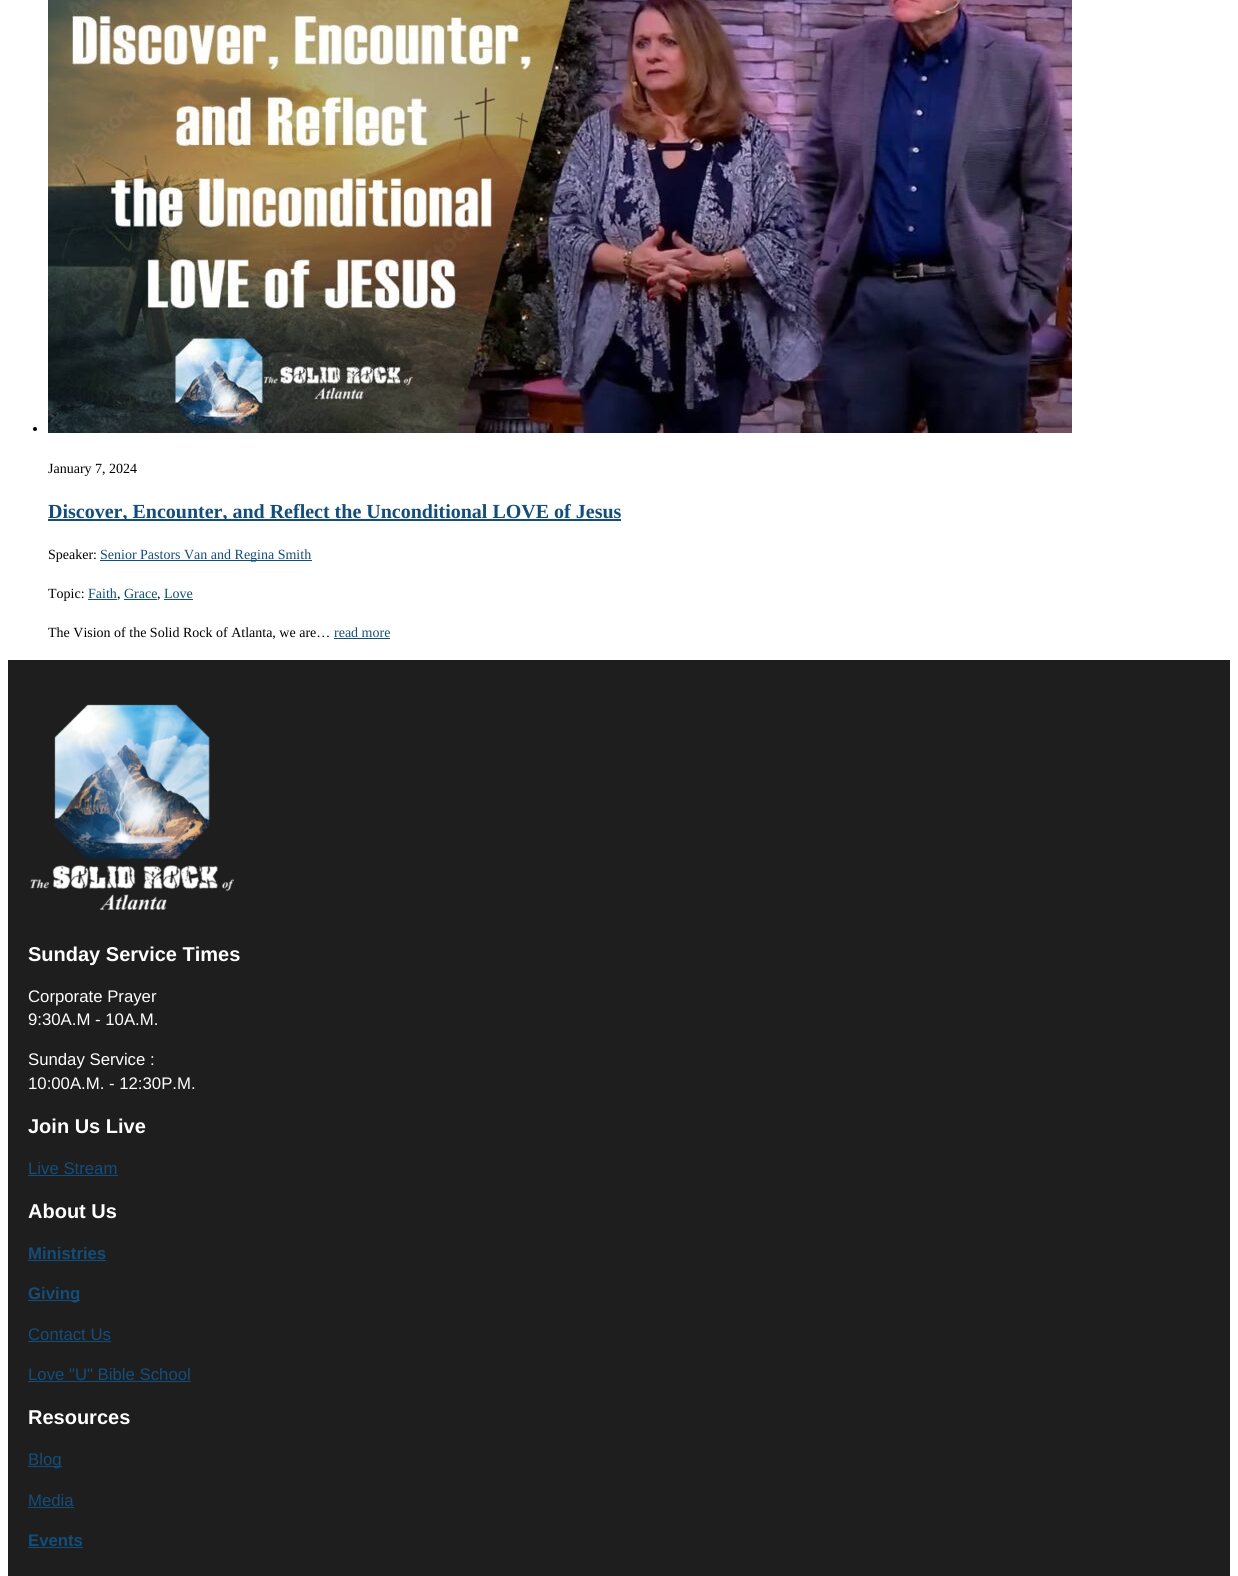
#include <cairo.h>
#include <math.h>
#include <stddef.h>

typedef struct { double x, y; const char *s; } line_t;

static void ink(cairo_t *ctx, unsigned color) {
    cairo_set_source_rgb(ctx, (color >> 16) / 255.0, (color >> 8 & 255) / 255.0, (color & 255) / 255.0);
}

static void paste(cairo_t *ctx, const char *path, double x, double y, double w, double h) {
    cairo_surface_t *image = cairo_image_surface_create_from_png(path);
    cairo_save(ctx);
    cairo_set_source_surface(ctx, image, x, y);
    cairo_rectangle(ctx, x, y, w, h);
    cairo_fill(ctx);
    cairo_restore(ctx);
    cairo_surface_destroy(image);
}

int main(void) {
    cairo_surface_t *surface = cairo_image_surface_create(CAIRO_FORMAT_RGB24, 1238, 1576);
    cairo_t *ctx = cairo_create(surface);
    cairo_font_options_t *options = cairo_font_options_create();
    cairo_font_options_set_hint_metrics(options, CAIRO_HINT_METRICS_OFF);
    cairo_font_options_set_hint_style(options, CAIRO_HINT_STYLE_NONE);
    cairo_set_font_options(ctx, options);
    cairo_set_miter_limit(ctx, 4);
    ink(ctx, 0xFFFFFF);
    cairo_paint(ctx);
    ink(ctx, 0x000000);
    cairo_arc(ctx, 35, 429, 2, 0, 2 * M_PI);
    cairo_fill(ctx);
    paste(ctx, "media/1.png", 48, 0, 1024, 433);
    cairo_select_font_face(ctx, "Liberation Serif", CAIRO_FONT_SLANT_NORMAL, CAIRO_FONT_WEIGHT_NORMAL);
    cairo_set_font_size(ctx, 14);
    cairo_move_to(ctx, 48, 473);
    cairo_show_text(ctx, "January 7, 2024");
    ink(ctx, 0x134D7A);
    cairo_rectangle(ctx, 48, 519, 573, 2);
    cairo_fill(ctx);
    cairo_select_font_face(ctx, "Liberation Serif", CAIRO_FONT_SLANT_NORMAL, CAIRO_FONT_WEIGHT_BOLD);
    cairo_set_font_size(ctx, 20);
    cairo_move_to(ctx, 48, 518);
    cairo_show_text(ctx, "Discover, Encounter, and Reflect the Unconditional LOVE of Jesus");
    cairo_select_font_face(ctx, "Liberation Serif", CAIRO_FONT_SLANT_NORMAL, CAIRO_FONT_WEIGHT_NORMAL);
    cairo_set_font_size(ctx, 14);
    ink(ctx, 0x000000);
    cairo_move_to(ctx, 48, 559);
    cairo_show_text(ctx, "Speaker:");
    ink(ctx, 0x134D7A);
    cairo_rectangle(ctx, 100, 560, 212, 1);
    cairo_fill(ctx);
    cairo_move_to(ctx, 100, 559);
    cairo_show_text(ctx, "Senior Pastors Van and Regina Smith");
    ink(ctx, 0x000000);
    cairo_move_to(ctx, 48, 598);
    cairo_show_text(ctx, "Topic:");
    ink(ctx, 0x134D7A);
    cairo_move_to(ctx, 88, 598);
    cairo_show_text(ctx, "Faith");
    cairo_rectangle(ctx, 88, 599, 29, 1);
    cairo_fill(ctx);
    ink(ctx, 0x000000);
    cairo_move_to(ctx, 117, 598);
    cairo_show_text(ctx, ",");
    ink(ctx, 0x134D7A);
    cairo_move_to(ctx, 124, 598);
    cairo_show_text(ctx, "Grace");
    cairo_rectangle(ctx, 124, 599, 33, 1);
    cairo_fill(ctx);
    ink(ctx, 0x000000);
    cairo_move_to(ctx, 157, 598);
    cairo_show_text(ctx, ",");
    ink(ctx, 0x134D7A);
    cairo_move_to(ctx, 164, 598);
    cairo_show_text(ctx, "Love");
    cairo_rectangle(ctx, 164, 599, 29, 1);
    cairo_fill(ctx);
    ink(ctx, 0x000000);
    cairo_move_to(ctx, 48, 637);
    cairo_show_text(ctx, "The Vision of the Solid Rock of Atlanta, we are…");
    ink(ctx, 0x134D7A);
    cairo_move_to(ctx, 334, 637);
    cairo_show_text(ctx, "read more");
    cairo_rectangle(ctx, 334, 638, 56, 1);
    cairo_fill(ctx);
    ink(ctx, 0x1E1E1E);
    cairo_rectangle(ctx, 8, 660, 1222, 916);
    cairo_fill(ctx);
    paste(ctx, "media/2.png", 30, 704, 204, 206);
    cairo_select_font_face(ctx, "Liberation Sans", CAIRO_FONT_SLANT_NORMAL, CAIRO_FONT_WEIGHT_BOLD);
    cairo_set_font_size(ctx, 20);
    ink(ctx, 0xFFFFFF);
    cairo_move_to(ctx, 28, 961);
    cairo_show_text(ctx, "Sunday Service Times");
    cairo_select_font_face(ctx, "Liberation Sans", CAIRO_FONT_SLANT_NORMAL, CAIRO_FONT_WEIGHT_NORMAL);
    cairo_set_font_size(ctx, 16.75);
    {
        static const line_t items[] = {
            {28, 1002, "Corporate Prayer"},
            {28, 1025, "9:30A.M - 10A.M."},
            {28, 1065, "Sunday Service :"},
            {28, 1089, "10:00A.M. - 12:30P.M."},
        };
        for (size_t i = 0; i < sizeof items / sizeof *items; i++) {
            cairo_move_to(ctx, items[i].x, items[i].y);
            cairo_show_text(ctx, items[i].s);
        }
    }
    cairo_select_font_face(ctx, "Liberation Sans", CAIRO_FONT_SLANT_NORMAL, CAIRO_FONT_WEIGHT_BOLD);
    cairo_set_font_size(ctx, 20);
    cairo_move_to(ctx, 28, 1133);
    cairo_show_text(ctx, "Join Us Live");
    cairo_select_font_face(ctx, "Liberation Sans", CAIRO_FONT_SLANT_NORMAL, CAIRO_FONT_WEIGHT_NORMAL);
    cairo_set_font_size(ctx, 16.75);
    ink(ctx, 0x134D7A);
    cairo_move_to(ctx, 28, 1174);
    cairo_show_text(ctx, "Live Stream");
    cairo_rectangle(ctx, 28, 1175, 90, 1);
    cairo_fill(ctx);
    cairo_select_font_face(ctx, "Liberation Sans", CAIRO_FONT_SLANT_NORMAL, CAIRO_FONT_WEIGHT_BOLD);
    cairo_set_font_size(ctx, 20);
    ink(ctx, 0xFFFFFF);
    cairo_move_to(ctx, 28, 1218);
    cairo_show_text(ctx, "About Us");
    cairo_set_font_size(ctx, 16.75);
    ink(ctx, 0x134D7A);
    cairo_move_to(ctx, 28, 1259);
    cairo_show_text(ctx, "Ministries");
    cairo_rectangle(ctx, 28, 1260, 78, 1);
    cairo_fill(ctx);
    cairo_rectangle(ctx, 28, 1300, 52, 1);
    cairo_fill(ctx);
    cairo_move_to(ctx, 28, 1299);
    cairo_show_text(ctx, "Giving");
    cairo_select_font_face(ctx, "Liberation Sans", CAIRO_FONT_SLANT_NORMAL, CAIRO_FONT_WEIGHT_NORMAL);
    cairo_move_to(ctx, 28, 1340);
    cairo_show_text(ctx, "Contact Us");
    cairo_rectangle(ctx, 28, 1341, 83, 1);
    cairo_fill(ctx);
    cairo_move_to(ctx, 28, 1380);
    cairo_show_text(ctx, "Love \"U\" Bible School");
    cairo_rectangle(ctx, 28, 1381, 163, 1);
    cairo_fill(ctx);
    cairo_select_font_face(ctx, "Liberation Sans", CAIRO_FONT_SLANT_NORMAL, CAIRO_FONT_WEIGHT_BOLD);
    cairo_set_font_size(ctx, 20);
    ink(ctx, 0xFFFFFF);
    cairo_move_to(ctx, 28, 1424);
    cairo_show_text(ctx, "Resources");
    ink(ctx, 0x134D7A);
    cairo_rectangle(ctx, 28, 1466, 34, 1);
    cairo_fill(ctx);
    cairo_select_font_face(ctx, "Liberation Sans", CAIRO_FONT_SLANT_NORMAL, CAIRO_FONT_WEIGHT_NORMAL);
    cairo_set_font_size(ctx, 16.75);
    cairo_move_to(ctx, 28, 1465);
    cairo_show_text(ctx, "Blog");
    cairo_move_to(ctx, 28, 1506);
    cairo_show_text(ctx, "Media");
    cairo_rectangle(ctx, 28, 1507, 46, 1);
    cairo_fill(ctx);
    cairo_select_font_face(ctx, "Liberation Sans", CAIRO_FONT_SLANT_NORMAL, CAIRO_FONT_WEIGHT_BOLD);
    cairo_move_to(ctx, 28, 1546);
    cairo_show_text(ctx, "Events");
    cairo_rectangle(ctx, 28, 1547, 55, 1);
    cairo_fill(ctx);
    cairo_surface_write_to_png(surface, "image.png");
    cairo_font_options_destroy(options);
    cairo_destroy(ctx);
    cairo_surface_destroy(surface);
    return 0;
}
